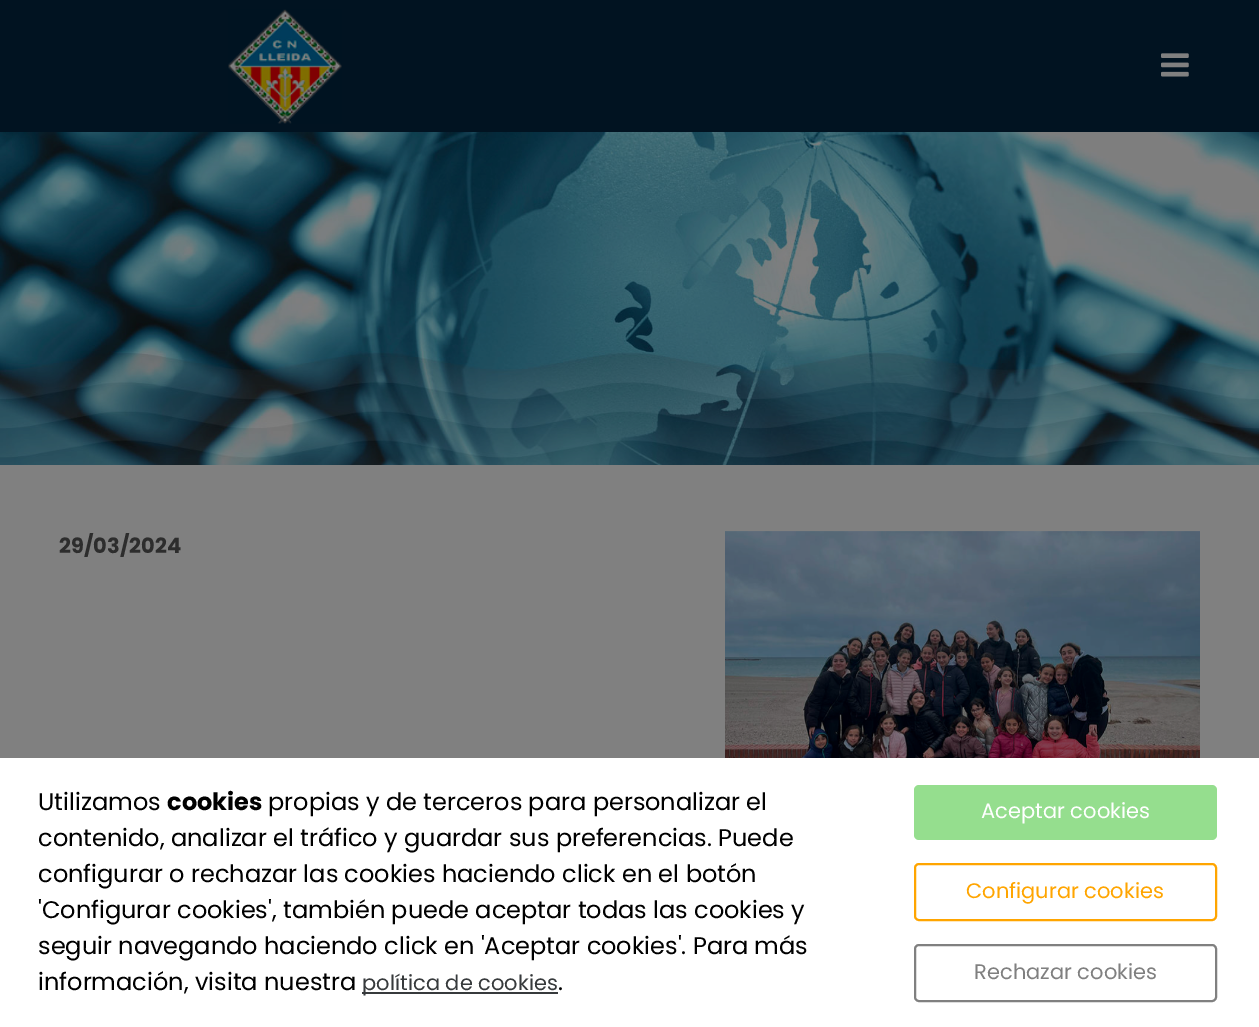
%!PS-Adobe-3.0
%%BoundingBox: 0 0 1259 1027
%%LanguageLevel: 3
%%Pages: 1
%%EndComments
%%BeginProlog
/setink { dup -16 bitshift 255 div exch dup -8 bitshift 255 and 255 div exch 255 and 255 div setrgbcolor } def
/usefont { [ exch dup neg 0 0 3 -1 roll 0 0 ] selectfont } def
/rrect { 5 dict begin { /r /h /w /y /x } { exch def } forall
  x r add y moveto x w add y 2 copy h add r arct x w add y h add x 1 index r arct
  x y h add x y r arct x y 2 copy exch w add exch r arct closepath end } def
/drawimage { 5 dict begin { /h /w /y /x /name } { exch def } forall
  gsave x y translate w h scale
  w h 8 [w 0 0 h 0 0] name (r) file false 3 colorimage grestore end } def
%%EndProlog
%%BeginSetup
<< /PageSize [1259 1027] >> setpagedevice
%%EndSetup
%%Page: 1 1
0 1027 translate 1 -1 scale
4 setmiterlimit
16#808080 setink
0 0 1259 1027 rectfill
16#011321 setink
0 0 1259 132 rectfill
(img1.raw) 228 9 114 115 drawimage
(img2.raw) 1161 53 28 24 drawimage
(img3.raw) 0 132 1259 333 drawimage
/Poppins-Bold 21 usefont
16#2D2D2D setink
59 553 moveto (29/03/2024) show
(img4.raw) 725 531 475 227 drawimage
16#FFFFFF setink
0 758 1259 269 rectfill
/Poppins-Regular 24 usefont
16#000000 setink
38 810 moveto (Utilizamos) show
/Poppins-Bold 24 usefont
167 810 moveto (cookies) show
/Poppins-Regular 24 usefont
[
    [(propias y de terceros para personalizar el) 268 810]
    [(contenido, analizar el tráfico y guardar sus preferencias. Puede) 38 846]
    [(configurar o rechazar las cookies haciendo click en el botón) 38 882]
    [('Configurar cookies', también puede aceptar todas las cookies y) 38 918]
    [(seguir navegando haciendo click en 'Aceptar cookies'. Para más) 38 954]
    [(información, visita nuestra) 38 990]
] { aload pop moveto show } forall
16#373A3C setink
362 992 196 2 rectfill
/Poppins-Regular 21 usefont
362 990 moveto (política de cookies) show
/Poppins-Regular 24 usefont
16#000000 setink
558 990 moveto (.) show
16#95DE8E setink
914 785 303 55 5 rrect fill
/Poppins-Regular 21 usefont
16#FFFFFF setink
981 818 moveto (Aceptar cookies) show
16#FFA500 setink
2 setlinewidth
915 864 301 56 4 rrect stroke
966 898 moveto (Configurar cookies) show
16#808080 setink
915 945 301 56 4 rrect stroke
974 979 moveto (Rechazar cookies) show
showpage
%%EOF
